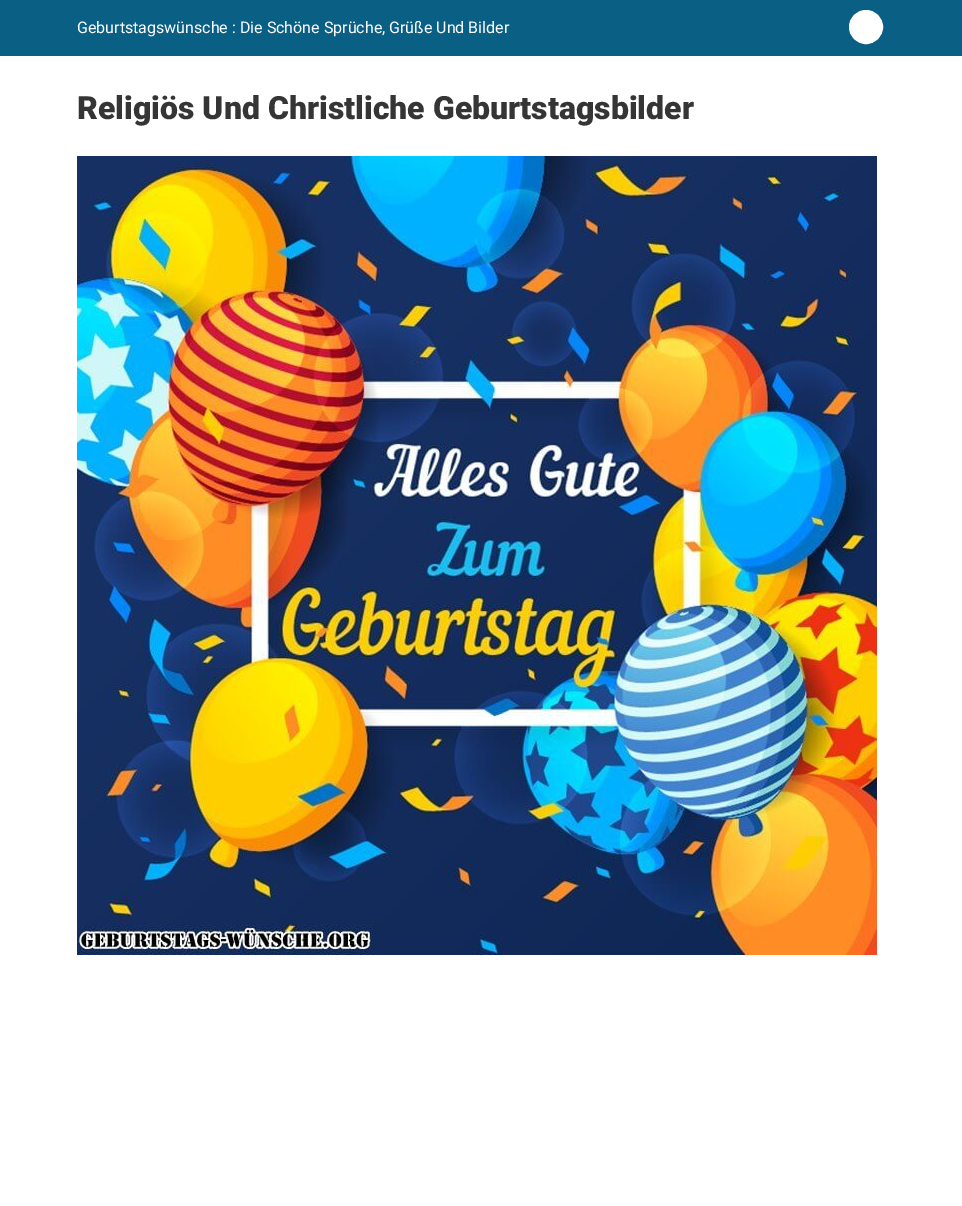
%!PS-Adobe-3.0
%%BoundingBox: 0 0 962 1206
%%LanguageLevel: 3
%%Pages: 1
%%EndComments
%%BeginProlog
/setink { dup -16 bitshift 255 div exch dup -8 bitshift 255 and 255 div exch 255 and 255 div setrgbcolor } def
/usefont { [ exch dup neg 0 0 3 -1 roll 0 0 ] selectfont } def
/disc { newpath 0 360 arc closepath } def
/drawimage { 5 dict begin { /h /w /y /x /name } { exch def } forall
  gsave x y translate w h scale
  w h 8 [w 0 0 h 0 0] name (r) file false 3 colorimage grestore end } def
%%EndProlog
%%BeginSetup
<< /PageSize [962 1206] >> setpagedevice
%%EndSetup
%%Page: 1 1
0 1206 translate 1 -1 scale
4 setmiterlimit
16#FFFFFF setink
0 0 962 1206 rectfill
16#0A5F85 setink
0 0 962 56 rectfill
/Roboto-Regular 16 usefont
16#FFFFFF setink
77 33 moveto (Geburtstagswünsche : Die Schöne Sprüche, Grüße Und Bilder) show
866 27 16.5 disc gsave fill grestore
stroke
/Roboto-Black 32 usefont
16#353535 setink
77 119 moveto (Religiös Und Christliche Geburtstagsbilder) show
(img1.raw) 77 156 800 799 drawimage
showpage
%%EOF
